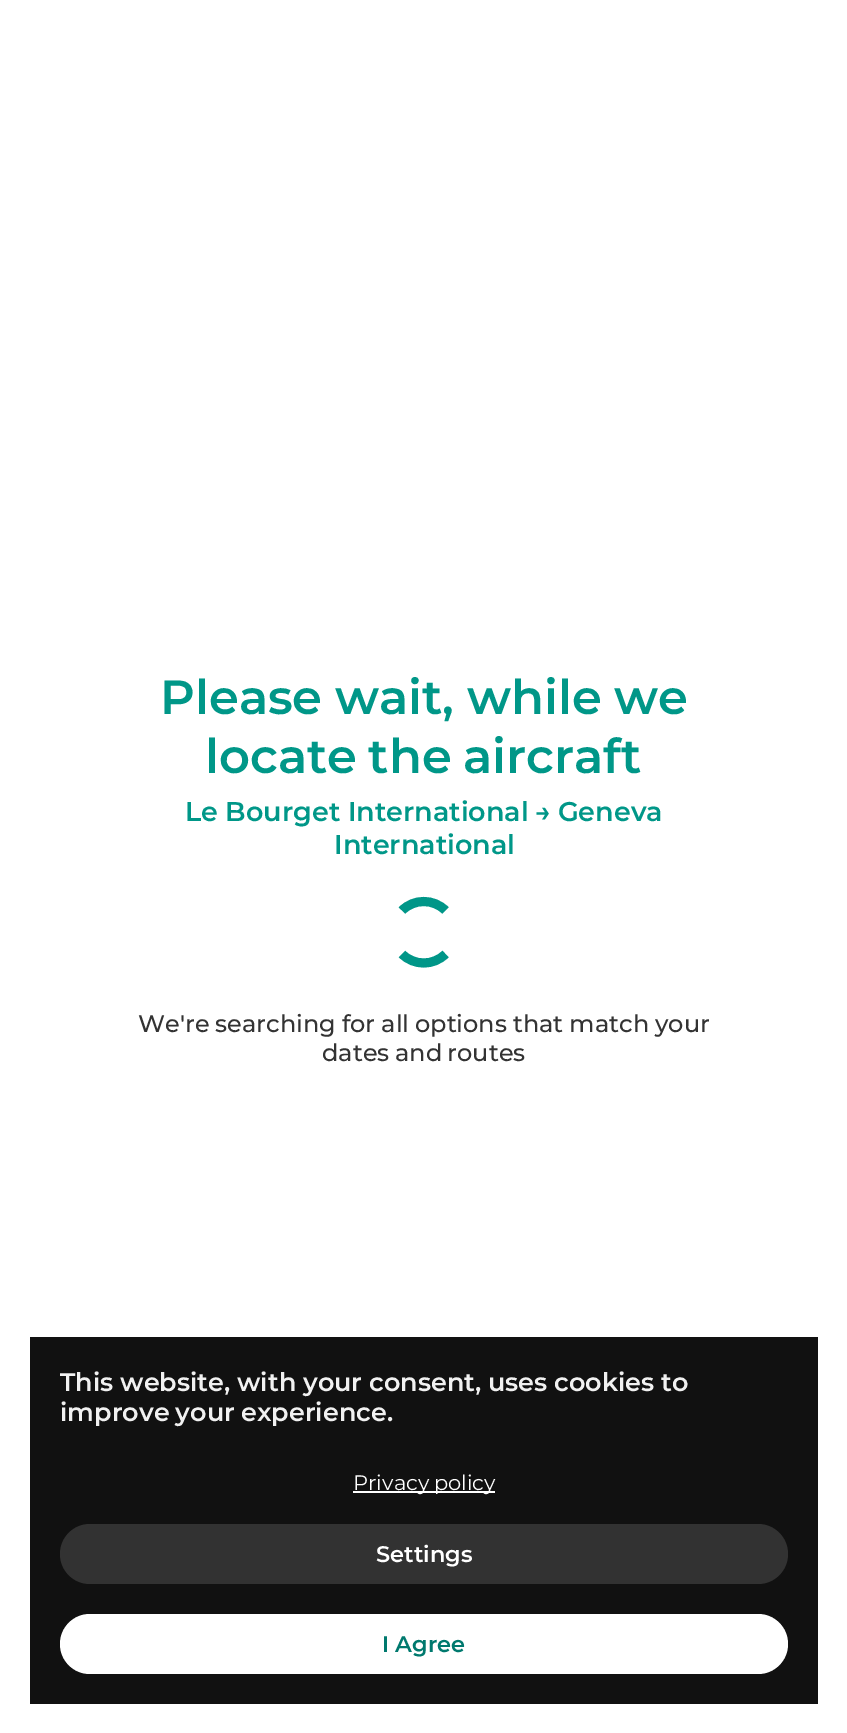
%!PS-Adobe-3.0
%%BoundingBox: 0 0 847 1733
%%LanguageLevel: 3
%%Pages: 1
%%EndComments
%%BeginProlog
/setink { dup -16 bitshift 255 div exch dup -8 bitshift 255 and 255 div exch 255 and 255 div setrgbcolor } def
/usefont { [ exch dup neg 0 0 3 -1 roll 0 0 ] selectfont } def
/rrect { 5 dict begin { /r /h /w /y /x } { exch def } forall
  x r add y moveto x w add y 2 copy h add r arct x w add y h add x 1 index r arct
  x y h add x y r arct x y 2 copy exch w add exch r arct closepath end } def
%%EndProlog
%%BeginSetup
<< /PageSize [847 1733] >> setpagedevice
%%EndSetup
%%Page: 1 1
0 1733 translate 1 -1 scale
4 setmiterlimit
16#FFFFFF setink
0 0 847 1733 rectfill
/Montserrat-SemiBold 48 usefont
16#009788 setink
160 714 moveto -0.5 0 32 (Please wait, while we) widthshow
205 773 moveto -2 0 32 (locate the aircraft) widthshow
/Montserrat-SemiBold 27 usefont
185 821 moveto (Le Bourget International) show
535 821 moveto -1 0 32 (→ Geneva) widthshow
334 854 moveto (International) show
16#009688 setink
9 setlinewidth
402 910.5 moveto 414 898.5 433.5 898.5 445.5 910.5 curveto stroke
445.5 954 moveto 433.5 966 414 966 402 954 curveto stroke
/Montserrat-Medium 24 usefont
16#333333 setink
138 1032 moveto -0.5 0 32 (We're searching for all options that match your) widthshow
322 1061 moveto -1 0 32 (dates and routes) widthshow
16#111111 setink
30 1337 788 367 rectfill
/Montserrat-SemiBold 25.5 usefont
16#F1F1F1 setink
60 1391 moveto -0.25 0 32 (This website, with your consent, uses cookies to) widthshow
60 1421 moveto -1 0 32 (improve your experience.) widthshow
16#FFFFFF setink
353 1491 142 2 rectfill
/Montserrat-Regular 21 usefont
353 1490 moveto -1 0 32 (Privacy policy) widthshow
16#323232 setink
60 1524 728 60 30 rrect fill
/Montserrat-SemiBold 22.5 usefont
16#FFFFFF setink
376 1562 moveto (Settings) show
60 1614 728 60 30 rrect fill
16#00796E setink
382 1652 moveto (I Agree) show
showpage
%%EOF
